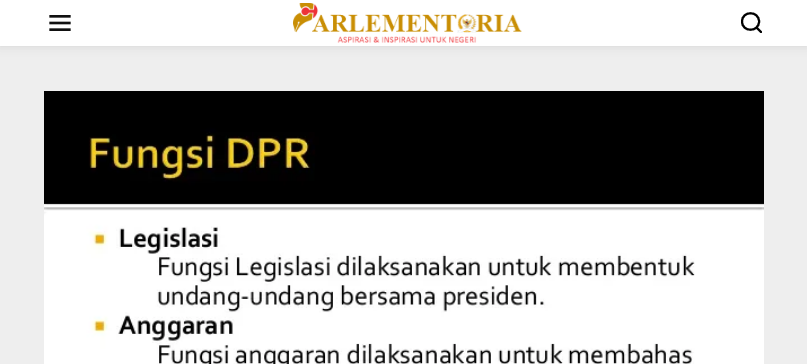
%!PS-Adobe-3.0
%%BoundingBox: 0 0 807 364
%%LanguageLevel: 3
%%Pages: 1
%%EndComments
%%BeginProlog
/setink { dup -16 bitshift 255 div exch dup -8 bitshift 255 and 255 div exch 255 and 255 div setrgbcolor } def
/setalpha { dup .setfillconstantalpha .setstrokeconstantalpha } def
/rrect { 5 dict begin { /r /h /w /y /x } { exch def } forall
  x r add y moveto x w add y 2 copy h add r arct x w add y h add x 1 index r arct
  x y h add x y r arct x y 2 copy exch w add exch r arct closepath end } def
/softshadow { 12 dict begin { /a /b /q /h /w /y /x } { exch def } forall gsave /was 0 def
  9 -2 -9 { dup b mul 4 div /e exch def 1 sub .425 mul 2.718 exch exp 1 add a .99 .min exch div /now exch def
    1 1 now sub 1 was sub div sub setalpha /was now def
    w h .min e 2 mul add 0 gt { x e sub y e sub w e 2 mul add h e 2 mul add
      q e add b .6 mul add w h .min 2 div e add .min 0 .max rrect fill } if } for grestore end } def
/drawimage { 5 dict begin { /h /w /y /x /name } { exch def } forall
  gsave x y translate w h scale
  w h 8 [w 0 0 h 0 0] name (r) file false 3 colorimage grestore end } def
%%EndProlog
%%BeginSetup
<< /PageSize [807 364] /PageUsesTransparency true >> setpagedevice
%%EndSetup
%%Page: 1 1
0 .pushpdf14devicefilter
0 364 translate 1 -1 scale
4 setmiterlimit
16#EEEEEE setink
0 0 807 364 rectfill
16#000000 setink
0 0 807 46 0 5 0.1 softshadow
16#FFFFFF setink
0 0 807 46 rectfill
(img1.raw) 49 15 22 16 drawimage
(img2.raw) 293 3 229 40 drawimage
16#000000 setink
2 setlinewidth
1 setlinecap
761 32 moveto 756.5 27.5 lineto 759 21.5 moveto 759 32.5 742 32.5 742 21.5 curveto 742 10.5 759 10.5 759 21.5 curveto closepath stroke
(img3.raw) 44 91 720 273 drawimage
.poppdf14devicefilter showpage
%%EOF
